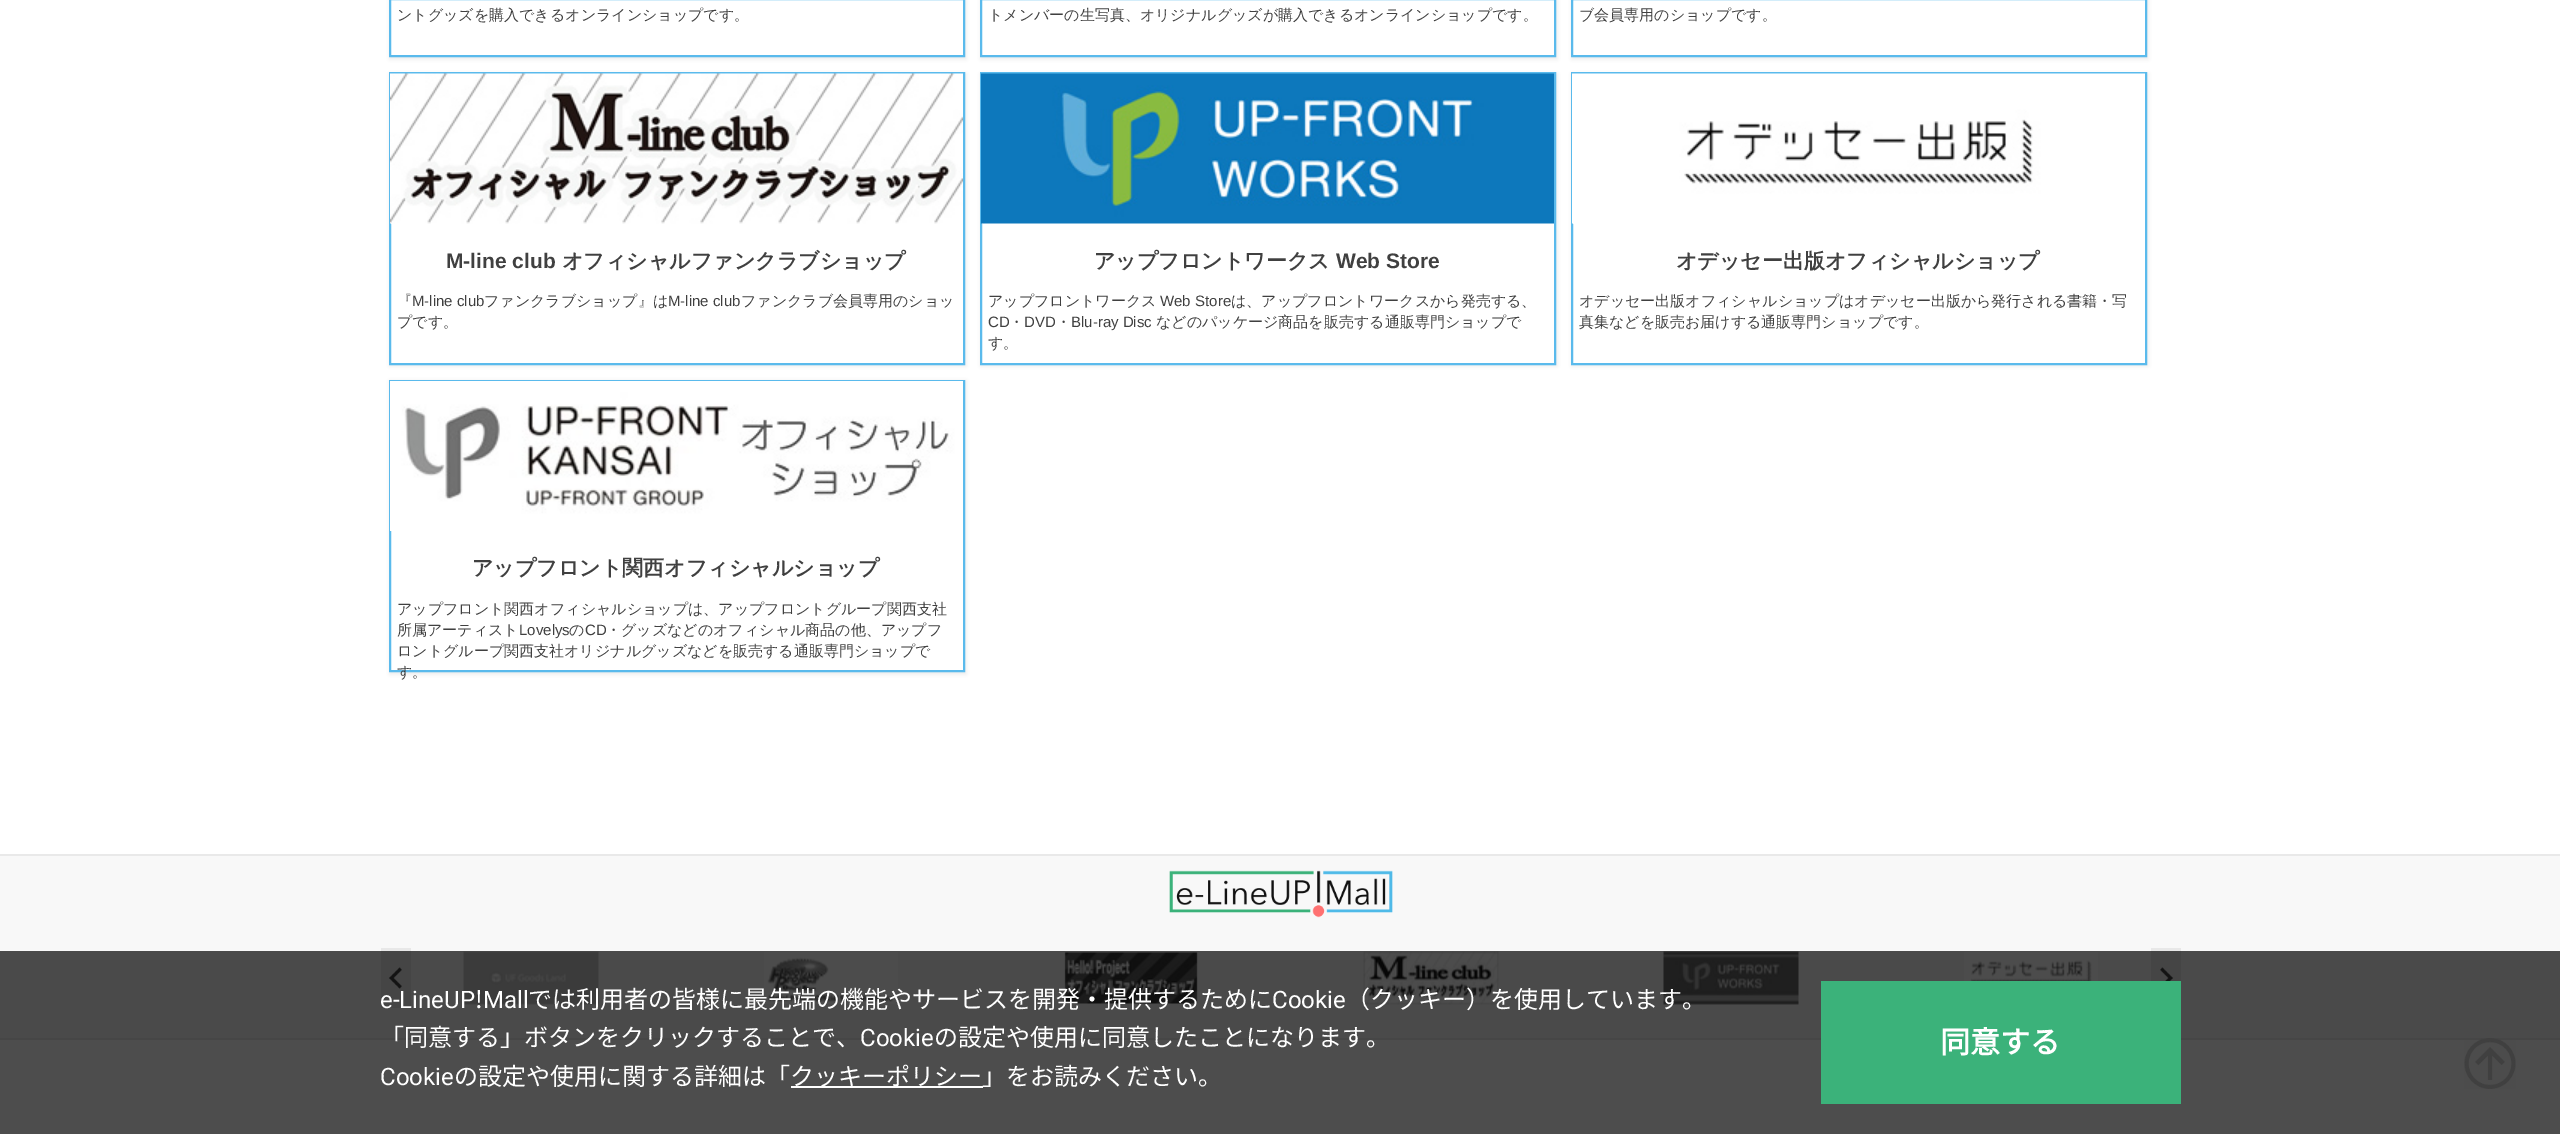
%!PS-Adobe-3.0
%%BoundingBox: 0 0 2560 1134
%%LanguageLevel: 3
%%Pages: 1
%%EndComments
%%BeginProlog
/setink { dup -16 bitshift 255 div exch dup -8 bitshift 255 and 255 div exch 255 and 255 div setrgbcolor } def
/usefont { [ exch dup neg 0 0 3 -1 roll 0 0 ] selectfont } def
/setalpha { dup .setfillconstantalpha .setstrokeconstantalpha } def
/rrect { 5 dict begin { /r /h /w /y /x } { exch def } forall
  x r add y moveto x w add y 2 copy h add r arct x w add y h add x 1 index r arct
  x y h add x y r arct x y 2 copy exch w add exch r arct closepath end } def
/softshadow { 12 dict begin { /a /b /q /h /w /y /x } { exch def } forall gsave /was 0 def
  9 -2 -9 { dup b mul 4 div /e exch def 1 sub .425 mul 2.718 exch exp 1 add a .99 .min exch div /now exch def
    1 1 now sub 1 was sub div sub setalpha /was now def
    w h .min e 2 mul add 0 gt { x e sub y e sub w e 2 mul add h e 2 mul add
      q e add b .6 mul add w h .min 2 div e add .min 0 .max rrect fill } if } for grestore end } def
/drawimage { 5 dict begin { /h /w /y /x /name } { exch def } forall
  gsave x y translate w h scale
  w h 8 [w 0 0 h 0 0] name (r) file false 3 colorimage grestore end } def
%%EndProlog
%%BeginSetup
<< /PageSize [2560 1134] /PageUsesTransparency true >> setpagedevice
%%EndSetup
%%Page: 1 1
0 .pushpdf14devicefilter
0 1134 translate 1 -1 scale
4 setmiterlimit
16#FFFFFF setink
0 0 2560 1134 rectfill
gsave
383 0 moveto 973 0 lineto 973 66 lineto 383 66 lineto closepath 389 -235 moveto 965 -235 lineto 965 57 lineto 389 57 lineto closepath eoclip newpath
16#BBBBBB setink
390 -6 576 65 0 2 0.3 softshadow
grestore
16#5ABAEC setink
2 setlinewidth
390 -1 574 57 rectstroke
/WenQuanYiZenHei-Medium 15 usefont
16#404040 setink
397 20 moveto (ントグッズを購入できるオンラインショップです。) show
gsave
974 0 moveto 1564 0 lineto 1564 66 lineto 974 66 lineto closepath 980 -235 moveto 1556 -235 lineto 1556 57 lineto 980 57 lineto closepath eoclip newpath
16#BBBBBB setink
981 -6 576 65 0 2 0.3 softshadow
grestore
16#5ABAEC setink
981 -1 574 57 rectstroke
16#404040 setink
988 20 moveto (トメンバーの生写真、オリジナルグッズが購入できるオンラインショップです。) show
gsave
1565 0 moveto 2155 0 lineto 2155 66 lineto 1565 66 lineto closepath 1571 -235 moveto 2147 -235 lineto 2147 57 lineto 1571 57 lineto closepath eoclip newpath
16#BBBBBB setink
1572 -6 576 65 0 2 0.3 softshadow
grestore
16#5ABAEC setink
1572 -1 574 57 rectstroke
16#404040 setink
1579 20 moveto (ブ会員専用のショップです。) show
gsave
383 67 moveto 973 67 lineto 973 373 lineto 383 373 lineto closepath 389 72 moveto 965 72 lineto 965 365 lineto 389 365 lineto closepath eoclip newpath
16#BBBBBB setink
390 74 576 292 0 2 0.3 softshadow
grestore
16#5ABAEC setink
390 73 574 291 rectstroke
(img1.raw) 390 73 573 151 drawimage
/LiberationSans-Bold 21 usefont
16#404040 setink
446 268 moveto (M-line club) show
/WenQuanYiZenHei-Bold 21 usefont
562 268 moveto (オフィシャルファンクラブショップ) show
/WenQuanYiZenHei-Medium 15 usefont
397 306 moveto (『) show
/LiberationSans-Regular 15 usefont
412 306 moveto (M-line club) show
/WenQuanYiZenHei-Medium 15 usefont
484 306 moveto (ファンクラブショップ』は) show
/LiberationSans-Regular 15 usefont
668 306 moveto (M-line club) show
/WenQuanYiZenHei-Medium 15 usefont
741 306 moveto (ファンクラブ会員専用のショッ) show
397 327 moveto (プです。) show
gsave
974 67 moveto 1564 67 lineto 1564 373 lineto 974 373 lineto closepath 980 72 moveto 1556 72 lineto 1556 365 lineto 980 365 lineto closepath eoclip newpath
16#BBBBBB setink
981 74 576 292 0 2 0.3 softshadow
grestore
16#5ABAEC setink
981 73 574 291 rectstroke
(img2.raw) 981 73 573 151 drawimage
/WenQuanYiZenHei-Bold 21 usefont
16#404040 setink
1094 268 moveto (アップフロントワークス) show
/LiberationSans-Bold 21 usefont
1336 268 moveto (Web Store) show
/WenQuanYiZenHei-Medium 15 usefont
988 306 moveto (アップフロントワークス) show
/LiberationSans-Regular 15 usefont
1160 306 moveto (Web Store) show
/WenQuanYiZenHei-Medium 15 usefont
1231 306 moveto (は、アップフロントワークスから発売する、) show
/LiberationSans-Regular 15 usefont
988 327 moveto (CD) show
/WenQuanYiZenHei-Medium 15 usefont
1009 327 moveto (・) show
/LiberationSans-Regular 15 usefont
1024 327 moveto (DVD) show
/WenQuanYiZenHei-Medium 15 usefont
1056 327 moveto (・) show
/LiberationSans-Regular 15 usefont
1071 327 moveto (Blu-ray Disc) show
/WenQuanYiZenHei-Medium 15 usefont
1156 327 moveto (などのパッケージ商品を販売する通販専門ショップで) show
988 348 moveto (す。) show
gsave
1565 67 moveto 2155 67 lineto 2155 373 lineto 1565 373 lineto closepath 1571 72 moveto 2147 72 lineto 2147 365 lineto 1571 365 lineto closepath eoclip newpath
16#BBBBBB setink
1572 74 576 292 0 2 0.3 softshadow
grestore
16#5ABAEC setink
1572 73 574 291 rectstroke
(img3.raw) 1572 73 573 151 drawimage
/WenQuanYiZenHei-Bold 21 usefont
16#404040 setink
1676 268 moveto (オデッセー出版オフィシャルショップ) show
/WenQuanYiZenHei-Medium 15 usefont
1579 306 moveto (オデッセー出版オフィシャルショップはオデッセー出版から発行される書籍・写) show
1579 327 moveto (真集などを販売お届けする通販専門ショップです。) show
gsave
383 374 moveto 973 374 lineto 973 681 lineto 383 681 lineto closepath 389 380 moveto 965 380 lineto 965 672 lineto 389 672 lineto closepath eoclip newpath
16#BBBBBB setink
390 381 576 293 0 2 0.3 softshadow
grestore
16#5ABAEC setink
390 381 574 290 rectstroke
(img4.raw) 390 381 573 150 drawimage
/WenQuanYiZenHei-Bold 21 usefont
16#404040 setink
472 575 moveto (アップフロント関西オフィシャルショップ) show
/WenQuanYiZenHei-Medium 15 usefont
397 614 moveto (アップフロント関西オフィシャルショップは、アップフロントグループ関西支社) show
397 635 moveto (所属アーティスト) show
/LiberationSans-Regular 15 usefont
519 635 moveto (Lovelys) show
/WenQuanYiZenHei-Medium 15 usefont
569 635 moveto (の) show
/LiberationSans-Regular 15 usefont
585 635 moveto (CD) show
/WenQuanYiZenHei-Medium 15 usefont
[
    [(・グッズなどのオフィシャル商品の他、アップフ) 606 635]
    [(ロントグループ関西支社オリジナルグッズなどを販売する通販専門ショップで) 397 656]
    [(す。) 397 677]
] { aload pop moveto show } forall
[
    [0 1040 2560 94 16#4D4D4D]
    [0 856 2560 95 16#F8F8F8]
    [0 951 2560 87 16#4A4A4A]
    [0 854 2560 2 16#E9E9E9]
    [0 1038 2560 2 16#464646]
] { aload pop setink rectfill } forall
(img5.raw) 1169 870 224 48 drawimage
(img6.raw) 381 948 30 60 drawimage
(img7.raw) 2151 948 30 33 drawimage
(img8.raw) 463 951 136 54 drawimage
(img9.raw) 764 952 134 52 drawimage
(img10.raw) 1064 952 134 52 drawimage
(img11.raw) 1363 951 136 54 drawimage
(img12.raw) 1663 951 136 54 drawimage
(img13.raw) 1964 952 134 29 drawimage
(img14.raw) 2464 1038 52 51 drawimage
/Roboto-Regular 24 usefont
16#FFFFFF setink
380 1008 moveto (e-LineUP) show
/NotoSansJP-Thin 24 usefont
475 1008 moveto (!) show
/Roboto-Regular 24 usefont
483 1008 moveto (Mall) show
/NotoSansJP-Thin 24 usefont
528 1008 moveto (では利用者の皆様に最先端の機能やサービスを開発・提供するために) show
/Roboto-Regular 24 usefont
1272 1008 moveto (Cookie) show
/NotoSansJP-Thin 24 usefont
1346 1008 moveto (（クッキー）を使用しています。) show
380 1046 moveto (「同意する」ボタンをクリックすることで、) show
/Roboto-Regular 24 usefont
860 1046 moveto (Cookie) show
/NotoSansJP-Thin 24 usefont
934 1046 moveto (の設定や使用に同意したことになります。) show
/Roboto-Regular 24 usefont
380 1085 moveto (Cookie) show
/NotoSansJP-Thin 24 usefont
454 1085 moveto (の設定や使用に関する詳細は「) show
791 1086 192 2 rectfill
790 1085 moveto (クッキーポリシー」をお読みください。) show
16#3BB27A setink
1821 981 360 123 rectfill
/NotoSansJP-Bold 30 usefont
16#FFFFFF setink
1940 1053 moveto (同意する) show
.poppdf14devicefilter showpage
%%EOF
